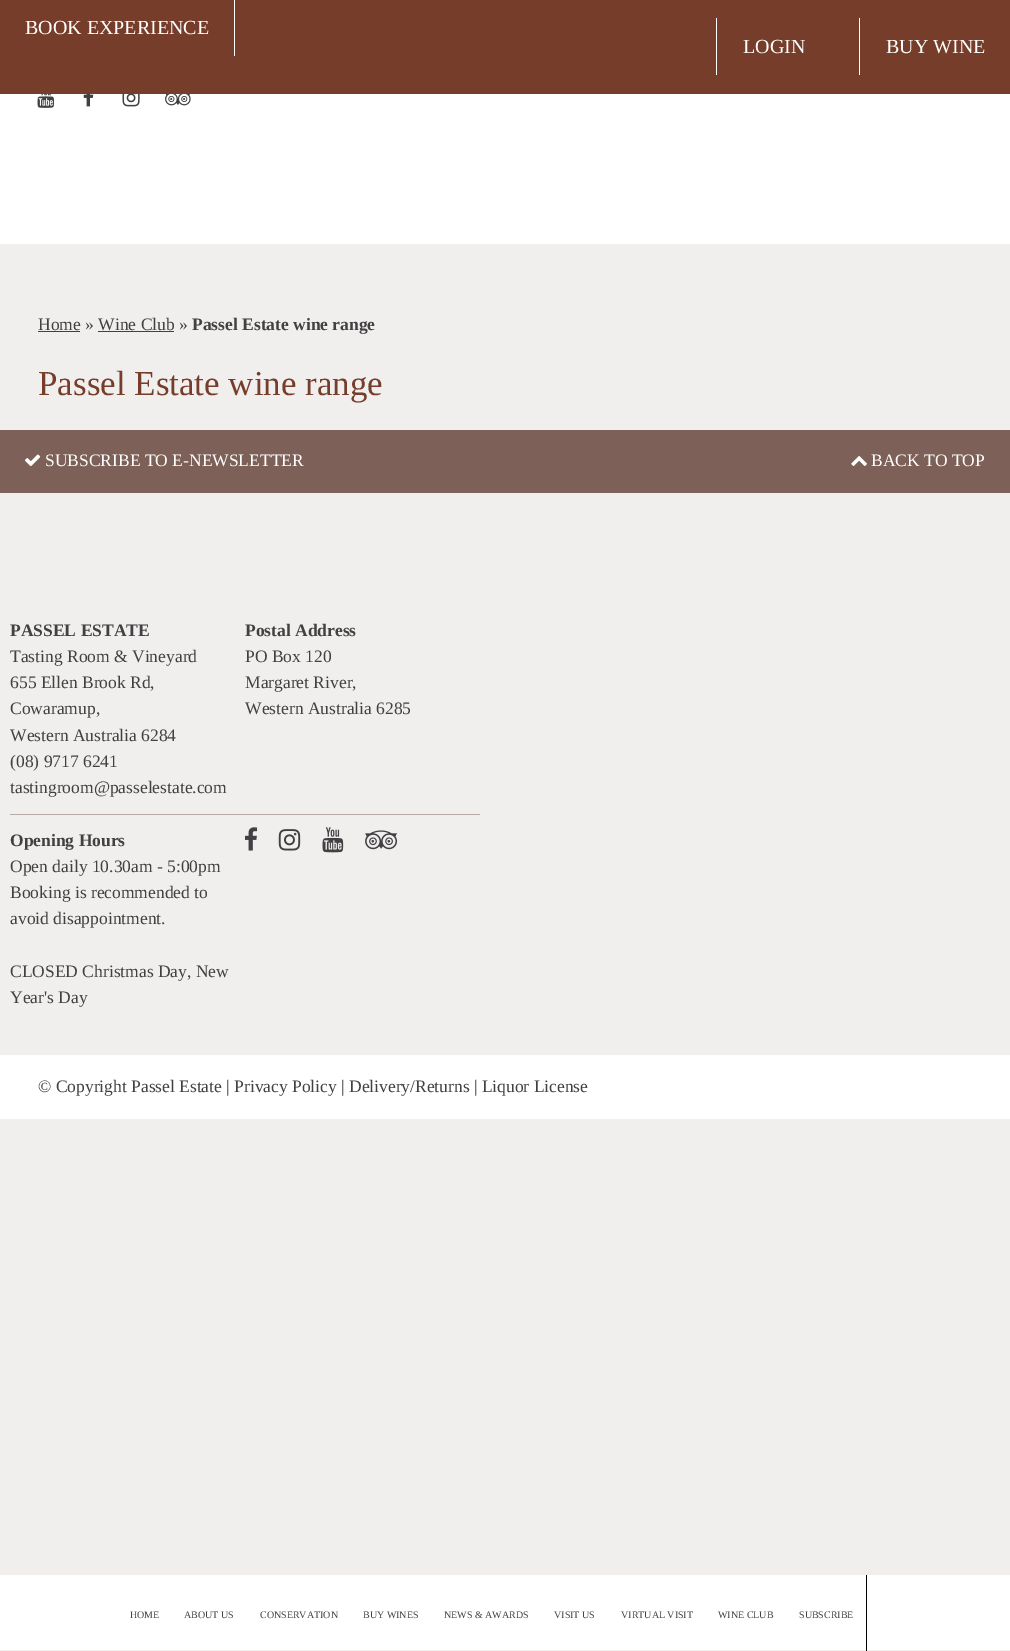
%!PS-Adobe-3.0
%%BoundingBox: 0 0 1010 1651
%%LanguageLevel: 3
%%Pages: 1
%%EndComments
%%BeginProlog
/setink { dup -16 bitshift 255 div exch dup -8 bitshift 255 and 255 div exch 255 and 255 div setrgbcolor } def
/usefont { [ exch dup neg 0 0 3 -1 roll 0 0 ] selectfont } def
/drawimage { 5 dict begin { /h /w /y /x /name } { exch def } forall
  gsave x y translate w h scale
  w h 8 [w 0 0 h 0 0] name (r) file false 3 colorimage grestore end } def
%%EndProlog
%%BeginSetup
<< /PageSize [1010 1651] >> setpagedevice
%%EndSetup
%%Page: 1 1
0 1651 translate 1 -1 scale
4 setmiterlimit
16#F1EFED setink
0 0 1010 1651 rectfill
16#763E2A setink
0 0 1010 94 rectfill
16#FFFFFF setink
234 0 1 56 rectfill
/LiberationSerif-Regular 20 usefont
25 34 moveto (BOOK EXPERIENCE) show
716 18 1 57 rectfill
743 53 moveto (LOGIN) show
859 18 1 57 rectfill
886 53 moveto (BUY WINE) show
0 94 1010 150 rectfill
(img1.raw) 37 94 18 14 drawimage
(img2.raw) 83 94 11 13 drawimage
(img3.raw) 122 94 18 13 drawimage
(img4.raw) 165 94 26 12 drawimage
/LiberationSerif-Regular 17.5 usefont
16#414042 setink
38 330 moveto (Home » Wine Club ») show
38 331 42 1 rectfill
98 331 76 1 rectfill
/LiberationSerif-Bold 17.5 usefont
192 330 moveto (Passel Estate wine range) show
/LiberationSerif-Regular 35 usefont
16#763E2A setink
38 395 moveto (Passel Estate wine range) show
16#7D6158 setink
0 430 1010 63 rectfill
(img5.raw) 25 454 16 13 drawimage
/LiberationSerif-Regular 17.5 usefont
16#FFFFFF setink
45 466 moveto (SUBSCRIBE TO E-NEWSLETTER) show
(img6.raw) 851 456 16 10 drawimage
871 466 moveto (BACK TO TOP) show
/LiberationSerif-Bold 17.5 usefont
16#414042 setink
10 636 moveto (PASSEL ESTATE) show
/LiberationSerif-Regular 17.5 usefont
[
    [(Tasting Room & Vineyard) 10 662]
    [(655 Ellen Brook Rd,) 10 688]
    [(Cowaramup,) 10 714]
    [(Western Australia 6284) 10 741]
    [(\(08\) 9717 6241) 10 767]
    [(tastingroom@passelestate.com) 10 793]
] { aload pop moveto show } forall
/LiberationSerif-Bold 17.5 usefont
245 636 moveto (Postal Address) show
/LiberationSerif-Regular 17.5 usefont
[
    [(PO Box 120) 245 662]
    [(Margaret River,) 245 688]
    [(Western Australia 6285) 245 714]
] { aload pop moveto show } forall
16#B6AAA6 setink
10 814 470 1 rectfill
/LiberationSerif-Bold 17.5 usefont
16#414042 setink
10 846 moveto (Opening Hours) show
/LiberationSerif-Regular 17.5 usefont
[
    [(Open daily 10.30am - 5:00pm) 10 872]
    [(Booking is recommended to) 10 898]
    [(avoid disappointment.) 10 924]
    [(CLOSED Christmas Day, New) 10 977]
    [(Year's Day) 10 1003]
] { aload pop moveto show } forall
(img7.raw) 245 827 13 24 drawimage
(img8.raw) 278 829 23 22 drawimage
(img9.raw) 322 827 22 26 drawimage
(img10.raw) 365 830 33 20 drawimage
16#FFFFFF setink
0 1055 1010 64 rectfill
16#414042 setink
38 1092 moveto (© Copyright Passel Estate | Privacy Policy | Delivery/Returns | Liquor License) show
16#FFFFFF setink
0 1575 1010 75 rectfill
/LiberationSerif-Regular 10 usefont
16#414042 setink
[
    [(HOME) 130 1618]
    [(ABOUT US) 184 1618]
    [(CONSERVATION) 260 1618]
    [(BUY WINES) 363 1618]
    [(NEWS & AWARDS) 444 1618]
    [(VISIT US) 554 1618]
    [(VIRTUAL VISIT) 621 1618]
    [(WINE CLUB) 718 1618]
    [(SUBSCRIBE) 799 1618]
] { aload pop moveto show } forall
16#000000 setink
866 1575 1 76 rectfill
showpage
%%EOF
